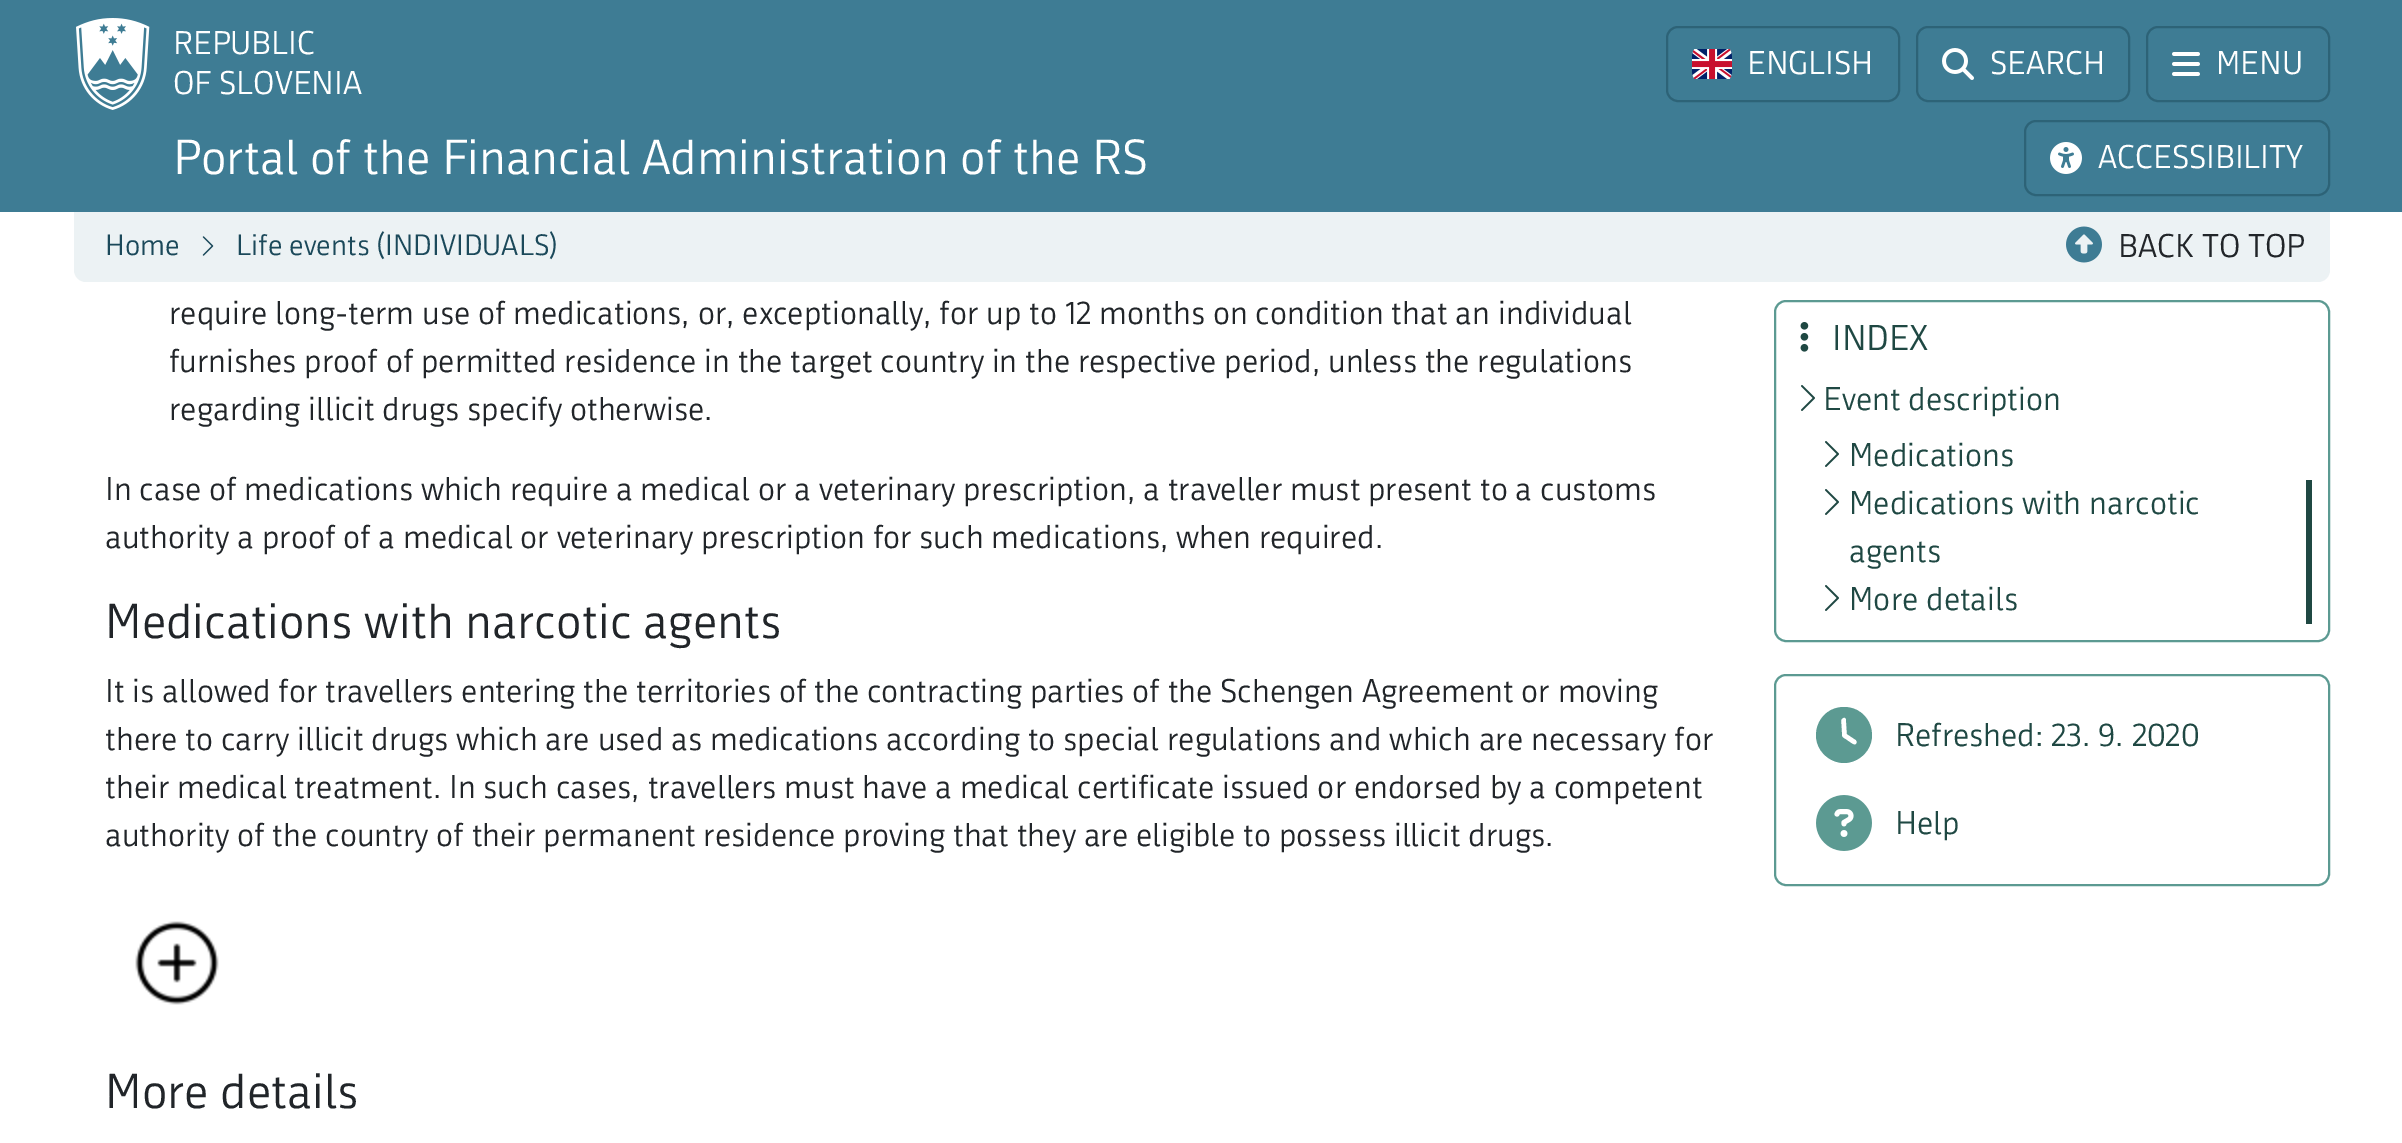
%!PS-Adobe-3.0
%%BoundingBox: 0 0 2402 1143
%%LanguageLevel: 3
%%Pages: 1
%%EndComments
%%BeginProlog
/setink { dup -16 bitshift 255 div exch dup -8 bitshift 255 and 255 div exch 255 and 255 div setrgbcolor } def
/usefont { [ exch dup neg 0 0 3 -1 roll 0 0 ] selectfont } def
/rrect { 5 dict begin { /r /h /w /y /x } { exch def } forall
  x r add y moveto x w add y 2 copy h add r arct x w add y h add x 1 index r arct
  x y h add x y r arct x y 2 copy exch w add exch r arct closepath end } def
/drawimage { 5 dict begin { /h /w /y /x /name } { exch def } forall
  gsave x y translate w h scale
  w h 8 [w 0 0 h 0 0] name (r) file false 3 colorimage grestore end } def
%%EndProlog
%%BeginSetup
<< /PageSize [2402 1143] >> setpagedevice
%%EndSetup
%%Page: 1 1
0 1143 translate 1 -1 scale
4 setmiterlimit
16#FFFFFF setink
0 0 2402 1143 rectfill
16#3E7C94 setink
0 0 2402 212 rectfill
(img1.raw) 76 18 74 92 drawimage
/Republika-Regular 32 usefont
16#FFFFFF setink
173 54 moveto (REPUBLIC) show
173 94 moveto (OF SLOVENIA) show
16#2D6377 setink
2 setlinewidth
1667 27 232 74 11 rrect stroke
(img2.raw) 1692 49 40 30 drawimage
16#FFFFFF setink
1747 74 moveto (ENGLISH) show
16#2D6377 setink
1917 27 212 74 11 rrect stroke
(img3.raw) 1942 48 32 32 drawimage
16#FFFFFF setink
1990 74 moveto (SEARCH) show
16#2D6377 setink
2147 27 182 74 11 rrect stroke
(img4.raw) 2172 52 28 24 drawimage
16#FFFFFF setink
2216 74 moveto (MENU) show
/Republika-Regular 48 usefont
173 174 moveto (Portal of the Financial Administration of the RS) show
16#2D6377 setink
2025 121 304 74 11 rrect stroke
(img5.raw) 2050 142 32 32 drawimage
/Republika-Regular 32 usefont
16#FFFFFF setink
2098 168 moveto (ACCESSIBILITY) show
16#ECF2F4 setink
74 212 moveto 2330 212 lineto 2330 270 lineto 2330 276.5 2324.5 282 2318 282 curveto 86 282 lineto 79.5 282 74 276.5 74 270 curveto closepath fill
/Republika-Regular 28.75 usefont
16#1B495A setink
105 255 moveto (Home) show
(img6.raw) 202 236 12 20 drawimage
236 255 moveto (Life events \(INDIVIDUALS\)) show
(img7.raw) 2066 226 36 37 drawimage
/Republika-Regular 32 usefont
16#212529 setink
[
    [(BACK TO TOP) 2118 257]
    [(require long-term use of medications, or, exceptionally, for up to 12 months on condition that an individual) 169 324]
    [(furnishes proof of permitted residence in the target country in the respective period, unless the regulations) 169 372]
    [(regarding illicit drugs specify otherwise.) 169 420]
    [(In case of medications which require a medical or a veterinary prescription, a traveller must present to a customs) 105 500]
    [(authority a proof of a medical or veterinary prescription for such medications, when required.) 105 548]
] { aload pop moveto show } forall
/Republika-Regular 48 usefont
105 638 moveto (Medications with narcotic agents) show
/Republika-Regular 32 usefont
[
    [(It is allowed for travellers entering the territories of the contracting parties of the Schengen Agreement or moving) 105 702]
    [(there to carry illicit drugs which are used as medications according to special regulations and which are necessary for) 105 750]
    [(their medical treatment. In such cases, travellers must have a medical certificate issued or endorsed by a competent) 105 798]
    [(authority of the country of their permanent residence proving that they are eligible to possess illicit drugs.) 105 846]
] { aload pop moveto show } forall
(img8.raw) 135 921 84 84 drawimage
/Republika-Regular 48 usefont
105 1108 moveto (More details) show
16#5C9A92 setink
1775 301 554 340 11 rrect stroke
(img9.raw) 1800 322 9 30 drawimage
/Republika-Regular 35 usefont
16#1F4843 setink
1832 350 moveto (INDEX) show
(img10.raw) 1801 385 14 26 drawimage
/Republika-Regular 32 usefont
1823 410 moveto (Event description) show
(img10.raw) 1825 441 14 26 drawimage
1849 466 moveto (Medications) show
2306 480 6 144 rectfill
(img10.raw) 1825 489 14 26 drawimage
1849 514 moveto (Medications with narcotic) show
1849 562 moveto (agents) show
(img10.raw) 1825 585 14 26 drawimage
1849 610 moveto (More details) show
16#5C9A92 setink
1775 675 554 210 11 rrect stroke
1844 707 moveto 1871 707 1882 741 1861 757 curveto 1856 761 1850 763 1844 763 curveto 1838 763 1832 761 1827 757 curveto 1806 741 1817 707 1844 707 curveto closepath 1841 720 moveto 1842 736 lineto 1842 738 1846 739 1848 741 curveto 1850 742 1856 748 1857 742 curveto 1856 740 lineto 1847 734 lineto 1846 719 lineto 1845 716 1842 718 1841 720 curveto closepath fill
16#1F4843 setink
1895 746 moveto (Refreshed: 23. 9. 2020) show
(img11.raw) 1816 795 56 56 drawimage
1895 834 moveto (Help) show
showpage
%%EOF
